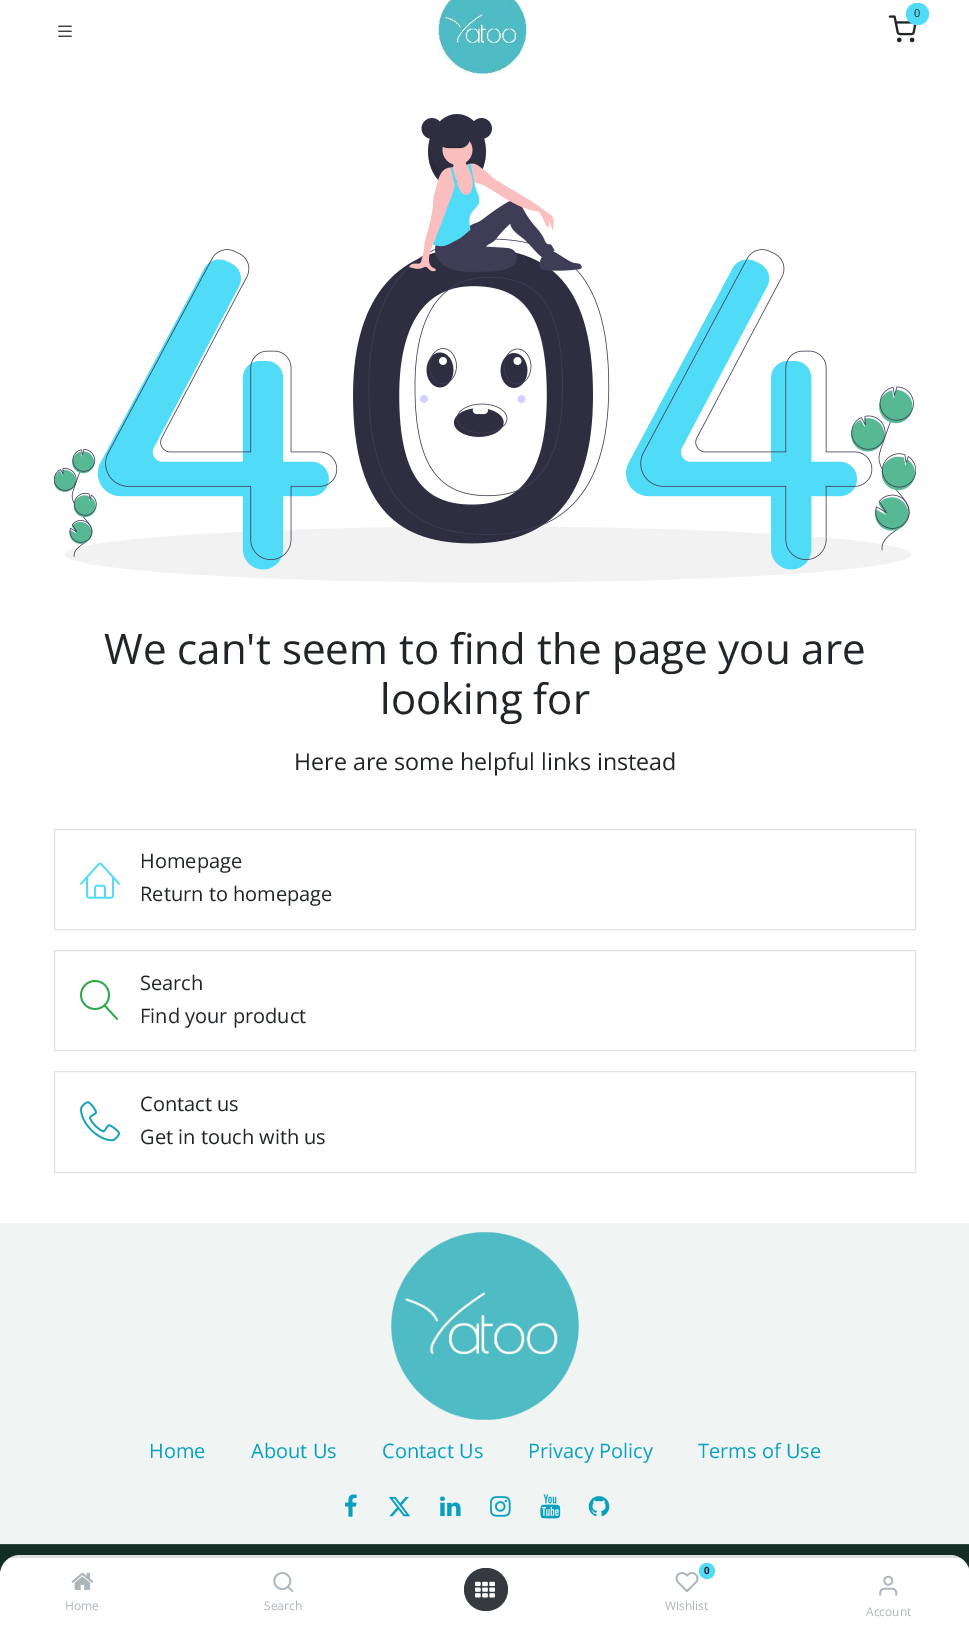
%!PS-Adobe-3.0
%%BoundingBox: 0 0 969 1626
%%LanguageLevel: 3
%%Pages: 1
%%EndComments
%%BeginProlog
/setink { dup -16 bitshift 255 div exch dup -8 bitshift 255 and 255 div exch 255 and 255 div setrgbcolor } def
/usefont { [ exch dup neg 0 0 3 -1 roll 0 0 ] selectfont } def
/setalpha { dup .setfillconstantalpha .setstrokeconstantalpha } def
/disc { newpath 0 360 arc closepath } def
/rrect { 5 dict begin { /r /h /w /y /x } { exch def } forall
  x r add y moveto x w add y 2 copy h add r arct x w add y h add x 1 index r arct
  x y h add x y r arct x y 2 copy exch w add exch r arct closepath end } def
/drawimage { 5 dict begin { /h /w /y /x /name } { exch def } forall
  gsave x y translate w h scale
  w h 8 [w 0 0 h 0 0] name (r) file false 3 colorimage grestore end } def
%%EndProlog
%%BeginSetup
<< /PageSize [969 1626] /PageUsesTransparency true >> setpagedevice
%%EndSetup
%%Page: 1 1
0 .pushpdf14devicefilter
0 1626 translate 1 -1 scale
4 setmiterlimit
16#FFFFFF setink
0 0 969 1626 rectfill
(img1.raw) 438 0 89 74 drawimage
(img2.raw) 888 15 29 28 drawimage
16#50DBF7 setink
906 3 23 22 11 rrect fill
/OpenSans-Regular 11 usefont
16#212529 setink
914 17 moveto (0) show
(img3.raw) 58 25 14 12 drawimage
(img4.raw) 54 114 862 469 drawimage
/OpenSans-Regular 42 usefont
104 664 moveto (We can't seem to find the page you are) show
380 714 moveto (looking for) show
/OpenSans-Regular 23.25 usefont
294 770 moveto (Here are some helpful links instead) show
16#DEE2E6 setink
54.5 829.5 861 100 rectstroke
(img5.raw) 80 862 40 37 drawimage
/OpenSans-Regular 20 usefont
16#212529 setink
140 868 moveto (Homepage) show
140 901 moveto (Return to homepage) show
16#DEE2E6 setink
54.5 950.5 861 100 rectstroke
(img6.raw) 80 980 38 40 drawimage
16#212529 setink
140 990 moveto (Search) show
140 1023 moveto (Find your product) show
16#DEE2E6 setink
54.5 1071.5 861 101 rectstroke
(img7.raw) 80 1101 40 41 drawimage
16#212529 setink
140 1111 moveto (Contact us) show
140 1144 moveto (Get in touch with us) show
16#F0F5F4 setink
0 1223 969 321 rectfill
(img8.raw) 391 1232 188 188 drawimage
16#09A0BF setink
[
    [(Home) 149 1458]
    [(About Us) 251 1458]
    [(Contact Us) 382 1458]
    [(Privacy Policy) 528 1458]
    [(Terms of Use) 698 1458]
] { aload pop moveto show } forall
(img9.raw) 345 1494 12 23 drawimage
(img10.raw) 389 1496 21 21 drawimage
(img11.raw) 440 1496 21 21 drawimage
(img12.raw) 490 1496 21 21 drawimage
(img13.raw) 540 1494 21 25 drawimage
(img14.raw) 588 1496 22 21 drawimage
16#142E26 setink
0 1545 969 30 rectfill
16#304740 setink
0 1544 969 1 rectfill
16#FFFFFF setink
20 1555 moveto 950 1555 lineto 961 1555 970 1564 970 1575 curveto 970 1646 lineto 0 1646 lineto 0 1575 lineto 0 1564 9 1555 20 1555 curveto closepath fill
0.15 setalpha
16#212529 setink
10 1555 950 3 rectfill
1 setalpha
(img15.raw) 71 1572 23 18 drawimage
/OpenSans-Regular 12 usefont
16#ADB5BD setink
65 1610 moveto (Home) show
(img16.raw) 273 1572 21 20 drawimage
264 1610 moveto (Search) show
16#343A40 setink
464 1568 44 43 21.5 rrect fill
(img17.raw) 475 1581 20 17 drawimage
16#50DBF7 setink
707 1571 7.5 disc gsave fill grestore
stroke
/OpenSans-Bold 10 usefont
16#212529 setink
704 1574 moveto (0) show
(img18.raw) 675 1572 24 21 drawimage
/OpenSans-Regular 12 usefont
16#ADB5BD setink
665 1610 moveto (Wishlist) show
(img19.raw) 879 1575 19 21 drawimage
866 1616 moveto (Account) show
.poppdf14devicefilter showpage
%%EOF
